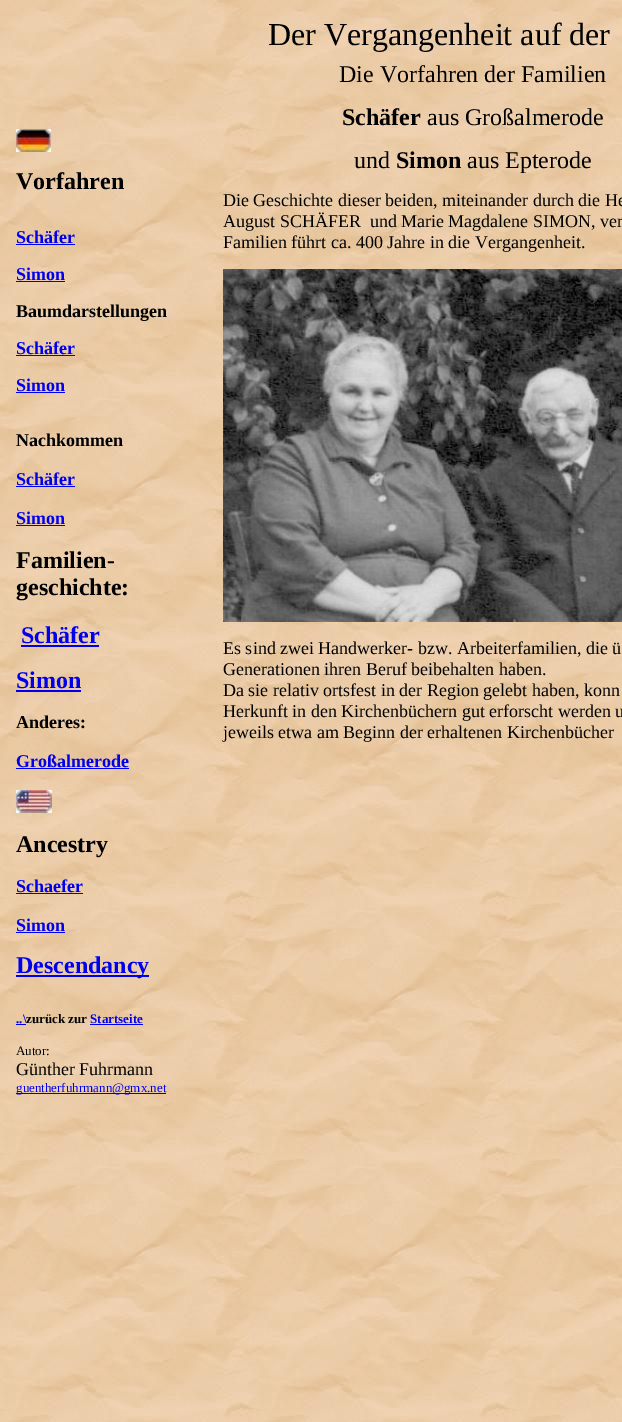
%!PS-Adobe-3.0
%%BoundingBox: 0 0 622 1422
%%LanguageLevel: 3
%%Pages: 1
%%EndComments
%%BeginProlog
/setink { dup -16 bitshift 255 div exch dup -8 bitshift 255 and 255 div exch 255 and 255 div setrgbcolor } def
/usefont { [ exch dup neg 0 0 3 -1 roll 0 0 ] selectfont } def
/drawimage { 5 dict begin { /h /w /y /x /name } { exch def } forall
  gsave x y translate w h scale
  w h 8 [w 0 0 h 0 0] name (r) file false 3 colorimage grestore end } def
%%EndProlog
%%BeginSetup
<< /PageSize [622 1422] >> setpagedevice
%%EndSetup
%%Page: 1 1
0 1422 translate 1 -1 scale
4 setmiterlimit
16#FFFFFF setink
0 0 622 1422 rectfill
(img1.raw) 0 0 622 1422 drawimage
/LiberationSerif-Regular 32 usefont
16#000000 setink
268 45 moveto (Der Vergangenheit auf der) show
(img2.raw) 16 129 35 23 drawimage
/LiberationSerif-Bold 24 usefont
16 189 moveto (Vorfahren) show
/LiberationSerif-Bold 18 usefont
16#0000EE setink
16 243 moveto (Schäfer) show
16 244 59 1 rectfill
16 280 moveto (Simon) show
16 281 49 1 rectfill
16#000000 setink
16 317 moveto (Baumdarstellungen) show
16#0000EE setink
16 354 moveto (Schäfer) show
16 355 59 1 rectfill
16 391 moveto (Simon) show
16 392 49 1 rectfill
16#000000 setink
16 446 moveto (Nachkommen) show
16#0000EE setink
16 485 moveto (Schäfer) show
16 486 59 1 rectfill
16 524 moveto (Simon) show
16 525 49 1 rectfill
/LiberationSerif-Bold 24 usefont
16#000000 setink
16 568 moveto (Familien-) show
16 595 moveto (geschichte:) show
16#0000EE setink
21 643 moveto (Schäfer) show
21 645 78 2 rectfill
16 688 moveto (Simon) show
16 690 65 2 rectfill
/LiberationSerif-Bold 18 usefont
16#000000 setink
16 728 moveto (Anderes:) show
16#0000EE setink
16 767 moveto (Großalmerode) show
16 768 113 1 rectfill
(img3.raw) 16 790 36 23 drawimage
/LiberationSerif-Bold 24 usefont
16#000000 setink
16 852 moveto (Ancestry) show
/LiberationSerif-Bold 18 usefont
16#0000EE setink
16 892 moveto (Schaefer) show
16 893 67 1 rectfill
16 931 moveto (Simon) show
16 932 49 1 rectfill
16 975 133 2 rectfill
/LiberationSerif-Bold 24 usefont
16 973 moveto (Descendancy) show
/LiberationSerif-Bold 13 usefont
16 1023 moveto (..\\) show
16 1024 10 1 rectfill
16#000000 setink
26 1023 moveto (zurück zur) show
16#0000EE setink
90 1023 moveto (Startseite) show
90 1024 53 1 rectfill
/LiberationSerif-Regular 13 usefont
16#000000 setink
16 1055 moveto (Autor:) show
/LiberationSerif-Regular 18 usefont
16 1075 moveto (Günther Fuhrmann) show
16#0000EE setink
16 1093 150 1 rectfill
/LiberationSerif-Regular 13 usefont
16 1092 moveto (guentherfuhrmann@gmx.net) show
/LiberationSerif-Regular 24 usefont
16#000000 setink
339 82 moveto (Die Vorfahren der Familien) show
/LiberationSerif-Bold 24 usefont
342 125 moveto (Schäfer) show
/LiberationSerif-Regular 24 usefont
427 125 moveto (aus Großalmerode) show
354 168 moveto (und) show
/LiberationSerif-Bold 24 usefont
396 168 moveto (Simon) show
/LiberationSerif-Regular 24 usefont
467 168 moveto (aus Epterode) show
/LiberationSerif-Regular 18 usefont
[
    [(Die Geschichte dieser beiden, miteinander durch die He) 223 206]
    [(August SCHÄFER  und Marie Magdalene SIMON, ver) 223 227]
    [(Familien führt ca. 400 Jahre in die Vergangenheit.) 223 248]
] { aload pop moveto show } forall
(img4.raw) 223 269 399 353 drawimage
[
    [(Es sind zwei Handwerker- bzw. Arbeiterfamilien, die ü) 223 654]
    [(Generationen ihren Beruf beibehalten haben.) 223 675]
    [(Da sie relativ ortsfest in der Region gelebt haben, konn) 223 696]
    [(Herkunft in den Kirchenbüchern gut erforscht werden u) 223 717]
    [(jeweils etwa am Beginn der erhaltenen Kirchenbücher) 223 738]
] { aload pop moveto show } forall
showpage
%%EOF
